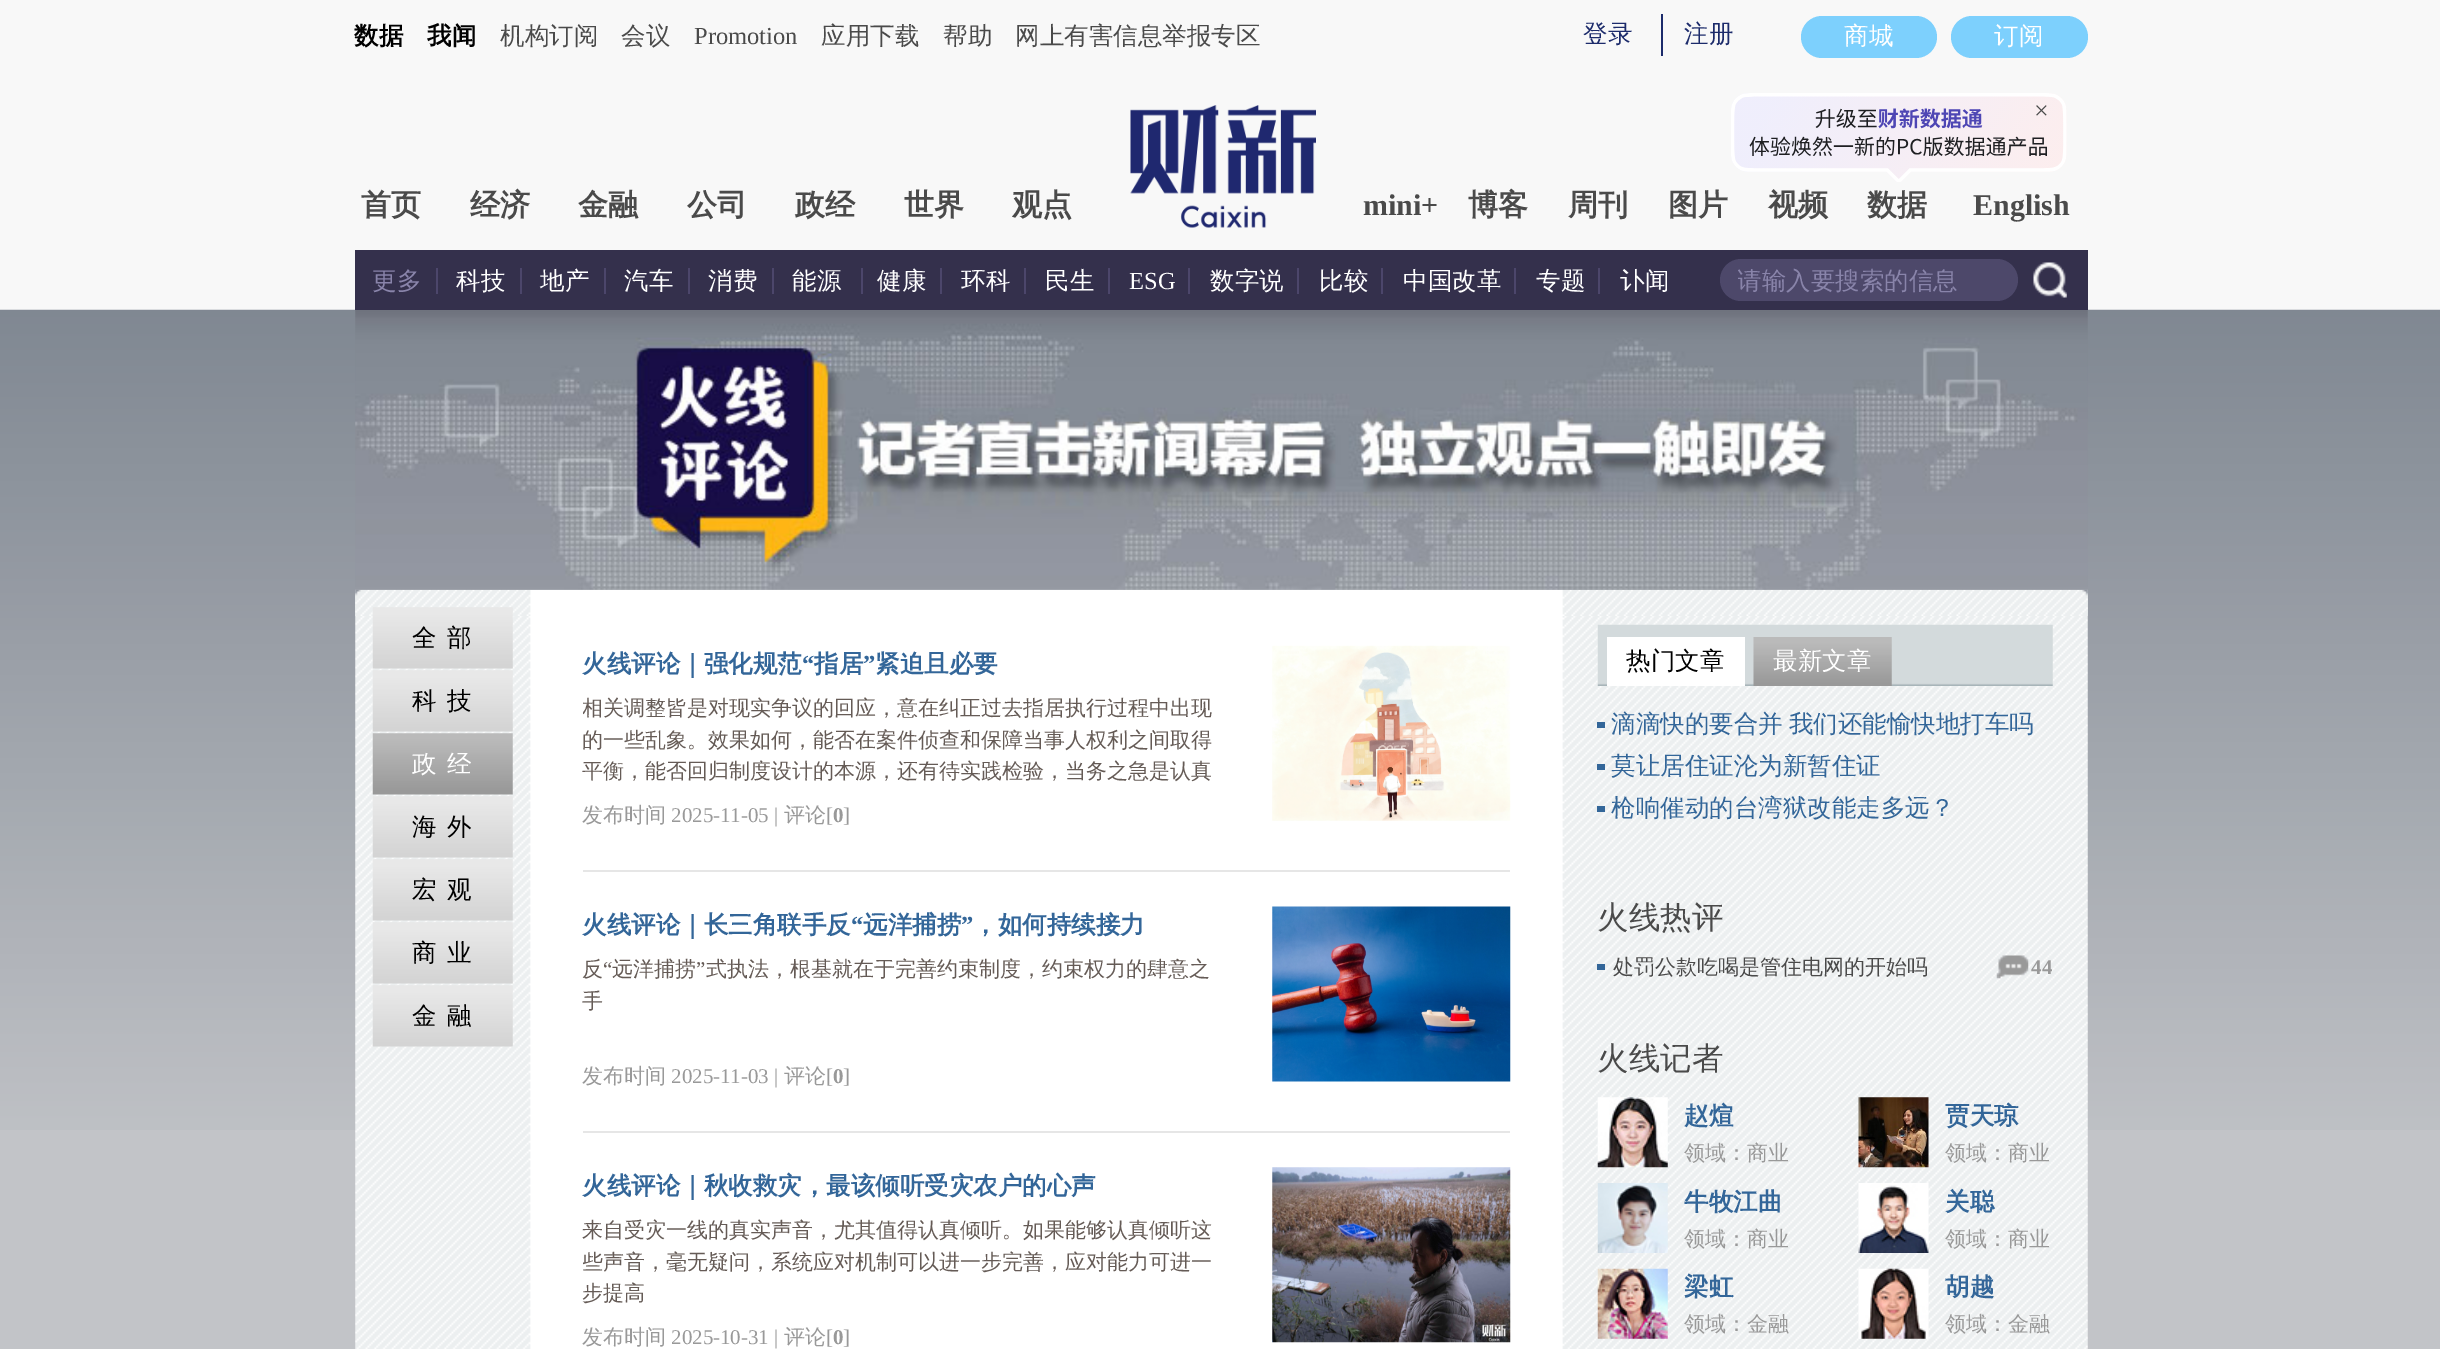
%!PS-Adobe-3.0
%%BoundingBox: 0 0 2440 1349
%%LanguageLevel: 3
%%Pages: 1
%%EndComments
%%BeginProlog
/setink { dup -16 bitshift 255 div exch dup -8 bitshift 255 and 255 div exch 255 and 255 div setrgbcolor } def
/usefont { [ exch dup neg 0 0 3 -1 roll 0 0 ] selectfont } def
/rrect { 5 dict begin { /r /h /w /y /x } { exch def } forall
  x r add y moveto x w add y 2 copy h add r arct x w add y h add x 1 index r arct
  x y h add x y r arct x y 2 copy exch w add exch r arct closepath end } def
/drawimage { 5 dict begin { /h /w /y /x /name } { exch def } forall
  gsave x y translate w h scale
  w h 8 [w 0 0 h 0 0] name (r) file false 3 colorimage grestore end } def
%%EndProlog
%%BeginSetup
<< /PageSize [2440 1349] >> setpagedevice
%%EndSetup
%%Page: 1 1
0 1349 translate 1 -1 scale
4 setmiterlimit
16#F8F8F8 setink
0 0 2440 1349 rectfill
/WenQuanYiZenHei-Bold 24.5 usefont
16#000000 setink
354 44 moveto (数据) show
427 44 moveto (我闻) show
/WenQuanYiZenHei-Medium 24.5 usefont
16#4A4A4A setink
500 44 moveto (机构订阅) show
621 44 moveto (会议) show
/LiberationSerif-Regular 24.5 usefont
694 44 moveto (Promotion) show
/WenQuanYiZenHei-Medium 24.5 usefont
[
    [(应用下载) 821 44]
    [(帮助) 943 44]
    [(网上有害信息举报专区) 1015 44]
] { aload pop moveto show } forall
16#1C2B6B setink
1583 42 moveto (登录) show
1661 14 2 42 rectfill
1684 42 moveto (注册) show
16#7DD0FD setink
1801 16 136 42 21 rrect fill
16#FFFFFF setink
1844 44 moveto (商城) show
16#7DD0FD setink
1951 16 137 42 21 rrect fill
16#FFFFFF setink
1994 44 moveto (订阅) show
/WenQuanYiZenHei-Bold 30 usefont
16#4A4A4A setink
[
    [(首页) 361 215]
    [(经济) 470 215]
    [(金融) 578 215]
    [(公司) 687 215]
    [(政经) 795 215]
    [(世界) 904 215]
    [(观点) 1012 215]
] { aload pop moveto show } forall
(img1.raw) 1130 105 186 123 drawimage
/LiberationSerif-Bold 30 usefont
1363 215 moveto (mini+) show
/WenQuanYiZenHei-Bold 30 usefont
[
    [(博客) 1468 215]
    [(周刊) 1568 215]
    [(图片) 1668 215]
    [(视频) 1768 215]
    [(数据) 1867 215]
] { aload pop moveto show } forall
/LiberationSerif-Bold 30 usefont
1973 215 moveto (English) show
(img4.raw) 0 309 2440 821 drawimage
16#34304C setink
355 250 1733 60 rectfill
/WenQuanYiZenHei-Medium 24.5 usefont
16#8984AA setink
372 289 moveto (更多) show
16#4C466B setink
436 268 2 26 rectfill
16#FFFFFF setink
456 289 moveto (科技) show
16#4C466B setink
520 268 2 26 rectfill
16#FFFFFF setink
540 289 moveto (地产) show
16#4C466B setink
604 268 2 26 rectfill
16#FFFFFF setink
624 289 moveto (汽车) show
16#4C466B setink
688 268 2 26 rectfill
16#FFFFFF setink
708 289 moveto (消费) show
16#4C466B setink
772 268 2 26 rectfill
16#FFFFFF setink
792 289 moveto (能源) show
16#4C466B setink
861 268 2 26 rectfill
16#FFFFFF setink
877 289 moveto (健康) show
16#4C466B setink
940 268 2 26 rectfill
16#FFFFFF setink
961 289 moveto (环科) show
16#4C466B setink
1024 268 2 26 rectfill
16#FFFFFF setink
1045 289 moveto (民生) show
16#4C466B setink
1108 268 2 26 rectfill
/LiberationSerif-Regular 24.5 usefont
16#FFFFFF setink
1129 289 moveto (ESG) show
16#4C466B setink
1188 268 2 26 rectfill
/WenQuanYiZenHei-Medium 24.5 usefont
16#FFFFFF setink
1210 289 moveto (数字说) show
16#4C466B setink
1297 268 2 26 rectfill
16#FFFFFF setink
1319 289 moveto (比较) show
16#4C466B setink
1381 268 2 26 rectfill
16#FFFFFF setink
1403 289 moveto (中国改革) show
16#4C466B setink
1514 268 2 26 rectfill
16#FFFFFF setink
1536 289 moveto (专题) show
16#4C466B setink
1598 268 2 26 rectfill
16#FFFFFF setink
1620 289 moveto (讣闻) show
16#4D486A setink
1720 259 298 42 21 rrect fill
gsave
1738 259 262 42 rectclip
16#8984AA setink
1737 289 moveto (请输入要搜索的信息) show
grestore
(img2.raw) 2033 262 34 36 drawimage
(img3.raw) 1731 93 336 89 drawimage
/LiberationSerif-Regular 26 usefont
16#4A4A4A setink
2034 119 moveto (×) show
16#C2C4C8 setink
0 1130 2440 219 rectfill
(img6.raw) 355 589 1733 760 drawimage
(img7.raw) 355 589 1733 27 drawimage
(img5.raw) 355 310 1733 280 drawimage
(img8.raw) 372 607 141 62 drawimage
/WenQuanYiZenHei-Medium 24.5 usefont
16#000000 setink
412 646 moveto -1 0 32 2 0 (全 部) awidthshow
(img9.raw) 372 670 141 62 drawimage
412 709 moveto -1 0 32 2 0 (科 技) awidthshow
(img10.raw) 372 733 141 62 drawimage
16#FFFFFF setink
412 772 moveto -1 0 32 2 0 (政 经) awidthshow
(img11.raw) 372 796 141 62 drawimage
16#000000 setink
412 835 moveto -1 0 32 2 0 (海 外) awidthshow
(img12.raw) 372 859 141 62 drawimage
412 898 moveto -1 0 32 2 0 (宏 观) awidthshow
(img13.raw) 372 922 141 62 drawimage
412 961 moveto -1 0 32 2 0 (商 业) awidthshow
(img9.raw) 372 985 141 62 drawimage
412 1024 moveto -1 0 32 2 0 (金 融) awidthshow
16#E6E6E6 setink
583 870 927 2 rectfill
/WenQuanYiZenHei-Bold 24.5 usefont
16#336699 setink
582 672 moveto (火线评论｜强化规范) show
/LiberationSerif-Bold 24.5 usefont
802 672 moveto (“) show
/WenQuanYiZenHei-Bold 24.5 usefont
814 672 moveto (指居) show
/LiberationSerif-Bold 24.5 usefont
863 672 moveto (”) show
/WenQuanYiZenHei-Bold 24.5 usefont
875 672 moveto (紧迫且必要) show
gsave
583 684 646 114 rectclip
/WenQuanYiZenHei-Medium 21 usefont
16#655B56 setink
582 715 moveto (相关调整皆是对现实争议的回应，意在纠正过去指居执行过程中出现) show
grestore
/WenQuanYiZenHei-Medium 21 usefont
16#655B56 setink
582 747 moveto (的一些乱象。效果如何，能否在案件侦查和保障当事人权利之间取得) show
582 778 moveto (平衡，能否回归制度设计的本源，还有待实践检验，当务之急是认真) show
16#999999 setink
582 822 moveto (发布时间) show
/LiberationSerif-Regular 21 usefont
671 822 moveto (2025-11-05 |) show
/WenQuanYiZenHei-Medium 21 usefont
784 822 moveto (评论) show
/LiberationSerif-Regular 21 usefont
826 822 moveto ([) show
/LiberationSerif-Bold 21 usefont
833 822 moveto (0) show
/LiberationSerif-Regular 21 usefont
843 822 moveto (]) show
(img14.raw) 1272 645 239 176 drawimage
16#E6E6E6 setink
583 1131 927 2 rectfill
/WenQuanYiZenHei-Bold 24.5 usefont
16#336699 setink
582 933 moveto (火线评论｜长三角联手反) show
/LiberationSerif-Bold 24.5 usefont
851 933 moveto (“) show
/WenQuanYiZenHei-Bold 24.5 usefont
863 933 moveto (远洋捕捞) show
/LiberationSerif-Bold 24.5 usefont
961 933 moveto (”) show
/WenQuanYiZenHei-Bold 24.5 usefont
973 933 moveto (，如何持续接力) show
/WenQuanYiZenHei-Medium 21 usefont
16#655B56 setink
582 976 moveto (反) show
/LiberationSerif-Regular 21 usefont
603 976 moveto (“) show
/WenQuanYiZenHei-Medium 21 usefont
612 976 moveto (远洋捕捞) show
/LiberationSerif-Regular 21 usefont
696 976 moveto (”) show
/WenQuanYiZenHei-Medium 21 usefont
706 976 moveto (式执法，根基就在于完善约束制度，约束权力的肆意之) show
582 1008 moveto (手) show
16#999999 setink
582 1083 moveto (发布时间) show
/LiberationSerif-Regular 21 usefont
671 1083 moveto (2025-11-03 |) show
/WenQuanYiZenHei-Medium 21 usefont
784 1083 moveto (评论) show
/LiberationSerif-Regular 21 usefont
826 1083 moveto ([) show
/LiberationSerif-Bold 21 usefont
833 1083 moveto (0) show
/LiberationSerif-Regular 21 usefont
843 1083 moveto (]) show
(img15.raw) 1272 906 239 176 drawimage
/WenQuanYiZenHei-Bold 24.5 usefont
16#336699 setink
582 1194 moveto (火线评论｜秋收救灾，最该倾听受灾农户的心声) show
/WenQuanYiZenHei-Medium 21 usefont
16#655B56 setink
582 1237 moveto (来自受灾一线的真实声音，尤其值得认真倾听。如果能够认真倾听这) show
gsave
583 1206 646 114 rectclip
582 1269 moveto (些声音，毫无疑问，系统应对机制可以进一步完善，应对能力可进一) show
grestore
582 1300 moveto (步提高) show
16#999999 setink
582 1344 moveto (发布时间) show
/LiberationSerif-Regular 21 usefont
671 1344 moveto (2025-10-31 |) show
/WenQuanYiZenHei-Medium 21 usefont
784 1344 moveto (评论) show
/LiberationSerif-Regular 21 usefont
826 1344 moveto ([) show
/LiberationSerif-Bold 21 usefont
833 1344 moveto (0) show
/LiberationSerif-Regular 21 usefont
843 1344 moveto (]) show
(img16.raw) 1272 1167 239 176 drawimage
(img17.raw) 1597 624 456 62 drawimage
16#FFFFFF setink
1607 637 138 49 rectfill
/WenQuanYiZenHei-Medium 24.5 usefont
16#000000 setink
1626 669 moveto (热门文章) show
(img18.raw) 1753 637 139 49 drawimage
16#FFFFFF setink
1773 669 moveto (最新文章) show
16#336699 setink
1597 722 8 6 rectfill
1611 732 moveto -1 0 32 (滴滴快的要合并 我们还能愉快地打车吗) widthshow
1597 764 8 6 rectfill
1611 774 moveto (莫让居住证沦为新暂住证) show
1597 806 8 6 rectfill
1611 816 moveto (枪响催动的台湾狱改能走多远？) show
/WenQuanYiZenHei-Medium 31.5 usefont
16#4A4A4A setink
1597 928 moveto (火线热评) show
16#336699 setink
1597 964 8 6 rectfill
/WenQuanYiZenHei-Medium 21 usefont
16#4A4A4A setink
1613 974 moveto (处罚公款吃喝是管住电网的开始吗) show
(img19.raw) 1996 955 33 24 drawimage
/LiberationSerif-Bold 21 usefont
16#999999 setink
2031 974 moveto (44) show
/WenQuanYiZenHei-Medium 31.5 usefont
16#4A4A4A setink
1597 1069 moveto (火线记者) show
(img20.raw) 1597 1097 71 71 drawimage
/WenQuanYiZenHei-Bold 24.5 usefont
16#336699 setink
1684 1124 moveto (赵煊) show
/WenQuanYiZenHei-Medium 21 usefont
16#999999 setink
1684 1160 moveto (领域：商业) show
(img21.raw) 1858 1097 71 71 drawimage
/WenQuanYiZenHei-Bold 24.5 usefont
16#336699 setink
1945 1124 moveto (贾天琼) show
/WenQuanYiZenHei-Medium 21 usefont
16#999999 setink
1945 1160 moveto (领域：商业) show
(img22.raw) 1597 1183 71 70 drawimage
/WenQuanYiZenHei-Bold 24.5 usefont
16#336699 setink
1684 1210 moveto (牛牧江曲) show
/WenQuanYiZenHei-Medium 21 usefont
16#999999 setink
1684 1246 moveto (领域：商业) show
(img23.raw) 1858 1183 71 70 drawimage
/WenQuanYiZenHei-Bold 24.5 usefont
16#336699 setink
1945 1210 moveto (关聪) show
/WenQuanYiZenHei-Medium 21 usefont
16#999999 setink
1945 1246 moveto (领域：商业) show
(img24.raw) 1597 1268 71 71 drawimage
/WenQuanYiZenHei-Bold 24.5 usefont
16#336699 setink
1684 1295 moveto (梁虹) show
/WenQuanYiZenHei-Medium 21 usefont
16#999999 setink
1684 1331 moveto (领域：金融) show
(img25.raw) 1858 1268 71 71 drawimage
/WenQuanYiZenHei-Bold 24.5 usefont
16#336699 setink
1945 1295 moveto (胡越) show
/WenQuanYiZenHei-Medium 21 usefont
16#999999 setink
1945 1331 moveto (领域：金融) show
showpage
%%EOF
